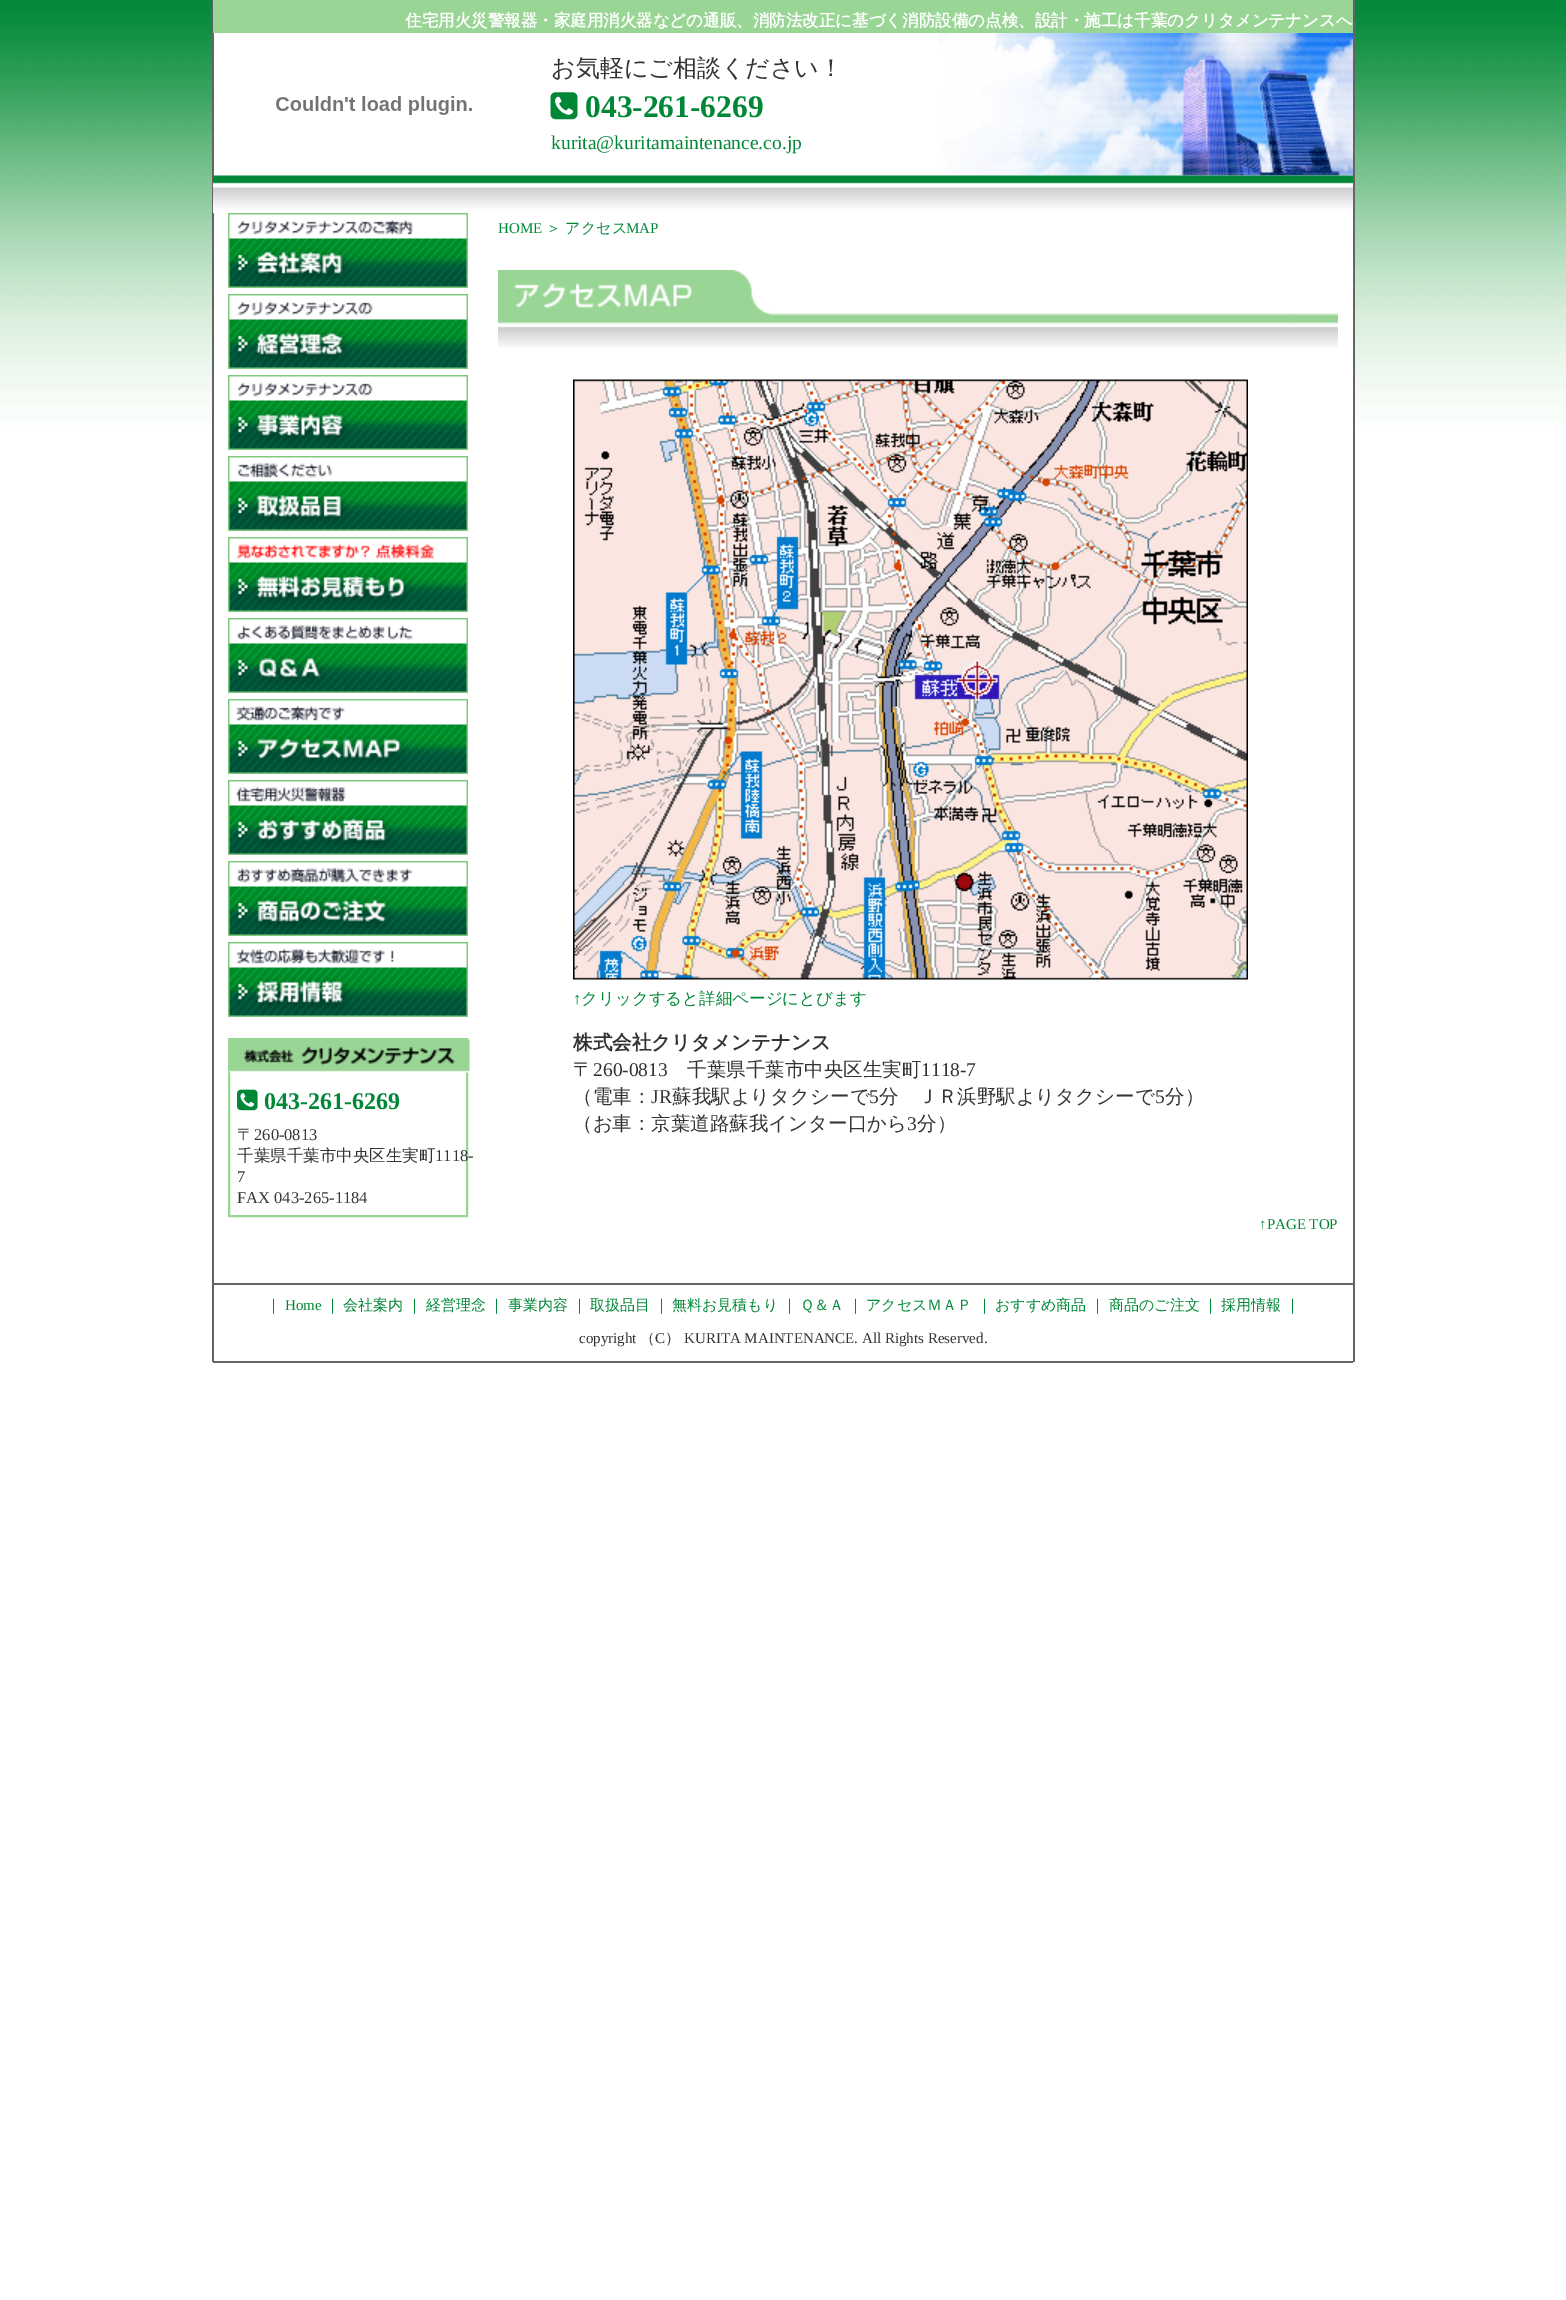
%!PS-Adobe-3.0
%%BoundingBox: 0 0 1566 2300
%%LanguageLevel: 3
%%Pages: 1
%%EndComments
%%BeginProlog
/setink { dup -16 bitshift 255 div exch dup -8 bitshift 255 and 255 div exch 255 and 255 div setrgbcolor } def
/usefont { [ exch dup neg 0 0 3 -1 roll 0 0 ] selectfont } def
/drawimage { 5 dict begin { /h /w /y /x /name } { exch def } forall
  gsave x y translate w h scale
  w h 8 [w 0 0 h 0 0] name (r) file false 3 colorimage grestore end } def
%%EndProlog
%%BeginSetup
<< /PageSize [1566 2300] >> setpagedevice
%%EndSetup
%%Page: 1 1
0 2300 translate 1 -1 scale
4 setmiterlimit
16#FFFFFF setink
0 0 1566 2300 rectfill
(img1.raw) 0 0 1566 426 drawimage
[
    [214 33 1139 393 16#FFFFFF]
    [1353 0 2 1362 16#646464]
    [212 0 2 1362 16#646464]
    [213 0 1140 33 16#99D594]
] { aload pop setink rectfill } forall
/WenQuanYiZenHei-Bold 16.5 usefont
16#FFFFFF setink
405 26 moveto (住宅用火災警報器・家庭用消火器などの通販、消防法改正に基づく消防設備の点検、設計・施工は千葉のクリタメンテナンスへ) show
(img2.raw) 276 96 196 19 drawimage
(img3.raw) 938 33 415 143 drawimage
/WenQuanYiZenHei-Medium 24 usefont
16#333333 setink
551 76 moveto (お気軽にご相談ください！) show
(img4.raw) 550 92 28 28 drawimage
/LiberationSerif-Bold 31.5 usefont
16#008837 setink
585 117 moveto (043-261-6269) show
/LiberationSerif-Regular 19.5 usefont
551 149 moveto (kurita@kuritamaintenance.co.jp) show
(img5.raw) 213 175 1140 38 drawimage
(img6.raw) 228 213 240 75 drawimage
(img7.raw) 228 294 240 75 drawimage
(img8.raw) 228 375 240 75 drawimage
(img9.raw) 228 456 240 75 drawimage
(img10.raw) 228 537 240 75 drawimage
(img11.raw) 228 618 240 75 drawimage
(img12.raw) 228 699 240 75 drawimage
(img13.raw) 228 780 240 75 drawimage
(img14.raw) 228 861 240 75 drawimage
(img15.raw) 228 942 240 75 drawimage
16#99D594 setink
2 setlinewidth
229 1039 238 177 rectstroke
(img16.raw) 229 1039 241 34 drawimage
(img17.raw) 237 1089 21 22 drawimage
/LiberationSerif-Bold 24 usefont
16#008837 setink
264 1109 moveto (043-261-6269) show
/WenQuanYiZenHei-Medium 16.5 usefont
16#333333 setink
237 1140 moveto (〒) show
/LiberationSerif-Regular 16.5 usefont
254 1140 moveto (260-0813) show
/WenQuanYiZenHei-Medium 16.5 usefont
237 1161 moveto (千葉県千葉市中央区生実町) show
/LiberationSerif-Regular 16.5 usefont
[
    [(1118-) 435 1161]
    [(7) 237 1182]
    [(FAX 043-265-1184) 237 1203]
] { aload pop moveto show } forall
/LiberationSerif-Regular 15 usefont
16#008837 setink
498 233 moveto (HOME) show
/WenQuanYiZenHei-Medium 15 usefont
546 233 moveto (＞ アクセス) show
/LiberationSerif-Regular 15 usefont
626 233 moveto (MAP) show
(img18.raw) 498 270 840 78 drawimage
(img19.raw) 573 379 675 601 drawimage
/LiberationSerif-Regular 16.5 usefont
573 1004 moveto (↑) show
/WenQuanYiZenHei-Medium 16.5 usefont
581 1004 moveto (クリックすると詳細ページにとびます) show
/WenQuanYiZenHei-Bold 19.5 usefont
16#333333 setink
573 1049 moveto (株式会社クリタメンテナンス) show
/WenQuanYiZenHei-Medium 19.5 usefont
573 1076 moveto (〒) show
/LiberationSerif-Regular 19.5 usefont
593 1076 moveto (260-0813) show
/WenQuanYiZenHei-Medium 19.5 usefont
687 1076 moveto (千葉県千葉市中央区生実町) show
/LiberationSerif-Regular 19.5 usefont
921 1076 moveto (1118-7) show
/WenQuanYiZenHei-Medium 19.5 usefont
573 1103 moveto (（電車：) show
/LiberationSerif-Regular 19.5 usefont
651 1103 moveto (JR) show
/WenQuanYiZenHei-Medium 19.5 usefont
672 1103 moveto (蘇我駅よりタクシーで) show
/LiberationSerif-Regular 19.5 usefont
869 1103 moveto (5) show
/WenQuanYiZenHei-Medium 19.5 usefont
879 1103 moveto (分　ＪＲ浜野駅よりタクシーで) show
/LiberationSerif-Regular 19.5 usefont
1155 1103 moveto (5) show
/WenQuanYiZenHei-Medium 19.5 usefont
1165 1103 moveto (分）) show
573 1130 moveto (（お車：京葉道路蘇我インター口から) show
/LiberationSerif-Regular 19.5 usefont
907 1130 moveto (3) show
/WenQuanYiZenHei-Medium 19.5 usefont
917 1130 moveto (分）) show
/LiberationSerif-Regular 15 usefont
16#008837 setink
1259 1229 moveto (↑PAGE TOP) show
16#646464 setink
213 1283 1140 2 rectfill
/WenQuanYiZenHei-Medium 15 usefont
16#008837 setink
266 1310 moveto (｜) show
/LiberationSerif-Regular 15 usefont
285 1310 moveto (Home) show
/WenQuanYiZenHei-Medium 15 usefont
[
    [(｜) 325 1310]
    [(会社案内) 343 1310]
    [(｜) 407 1310]
    [(経営理念) 426 1310]
    [(｜) 489 1310]
    [(事業内容) 508 1310]
    [(｜) 572 1310]
    [(取扱品目) 590 1310]
    [(｜) 654 1310]
    [(無料お見積もり) 672 1310]
    [(｜) 782 1310]
    [(Ｑ＆Ａ) 800 1310]
    [(｜) 848 1310]
    [(アクセスＭＡＰ) 866 1310]
    [(｜) 977 1310]
    [(おすすめ商品) 995 1310]
    [(｜) 1090 1310]
    [(商品のご注文) 1109 1310]
    [(｜) 1203 1310]
    [(採用情報) 1221 1310]
    [(｜) 1285 1310]
] { aload pop moveto show } forall
16#646464 setink
213 1361 1140 2 rectfill
/LiberationSerif-Regular 15 usefont
16#333333 setink
579 1343 moveto (copyright) show
/WenQuanYiZenHei-Medium 15 usefont
640 1343 moveto (（) show
/LiberationSerif-Regular 15 usefont
655 1343 moveto (C) show
/WenQuanYiZenHei-Medium 15 usefont
665 1343 moveto (）) show
/LiberationSerif-Regular 15 usefont
684 1343 moveto (KURITA MAINTENANCE. All Rights Reserved.) show
showpage
%%EOF
